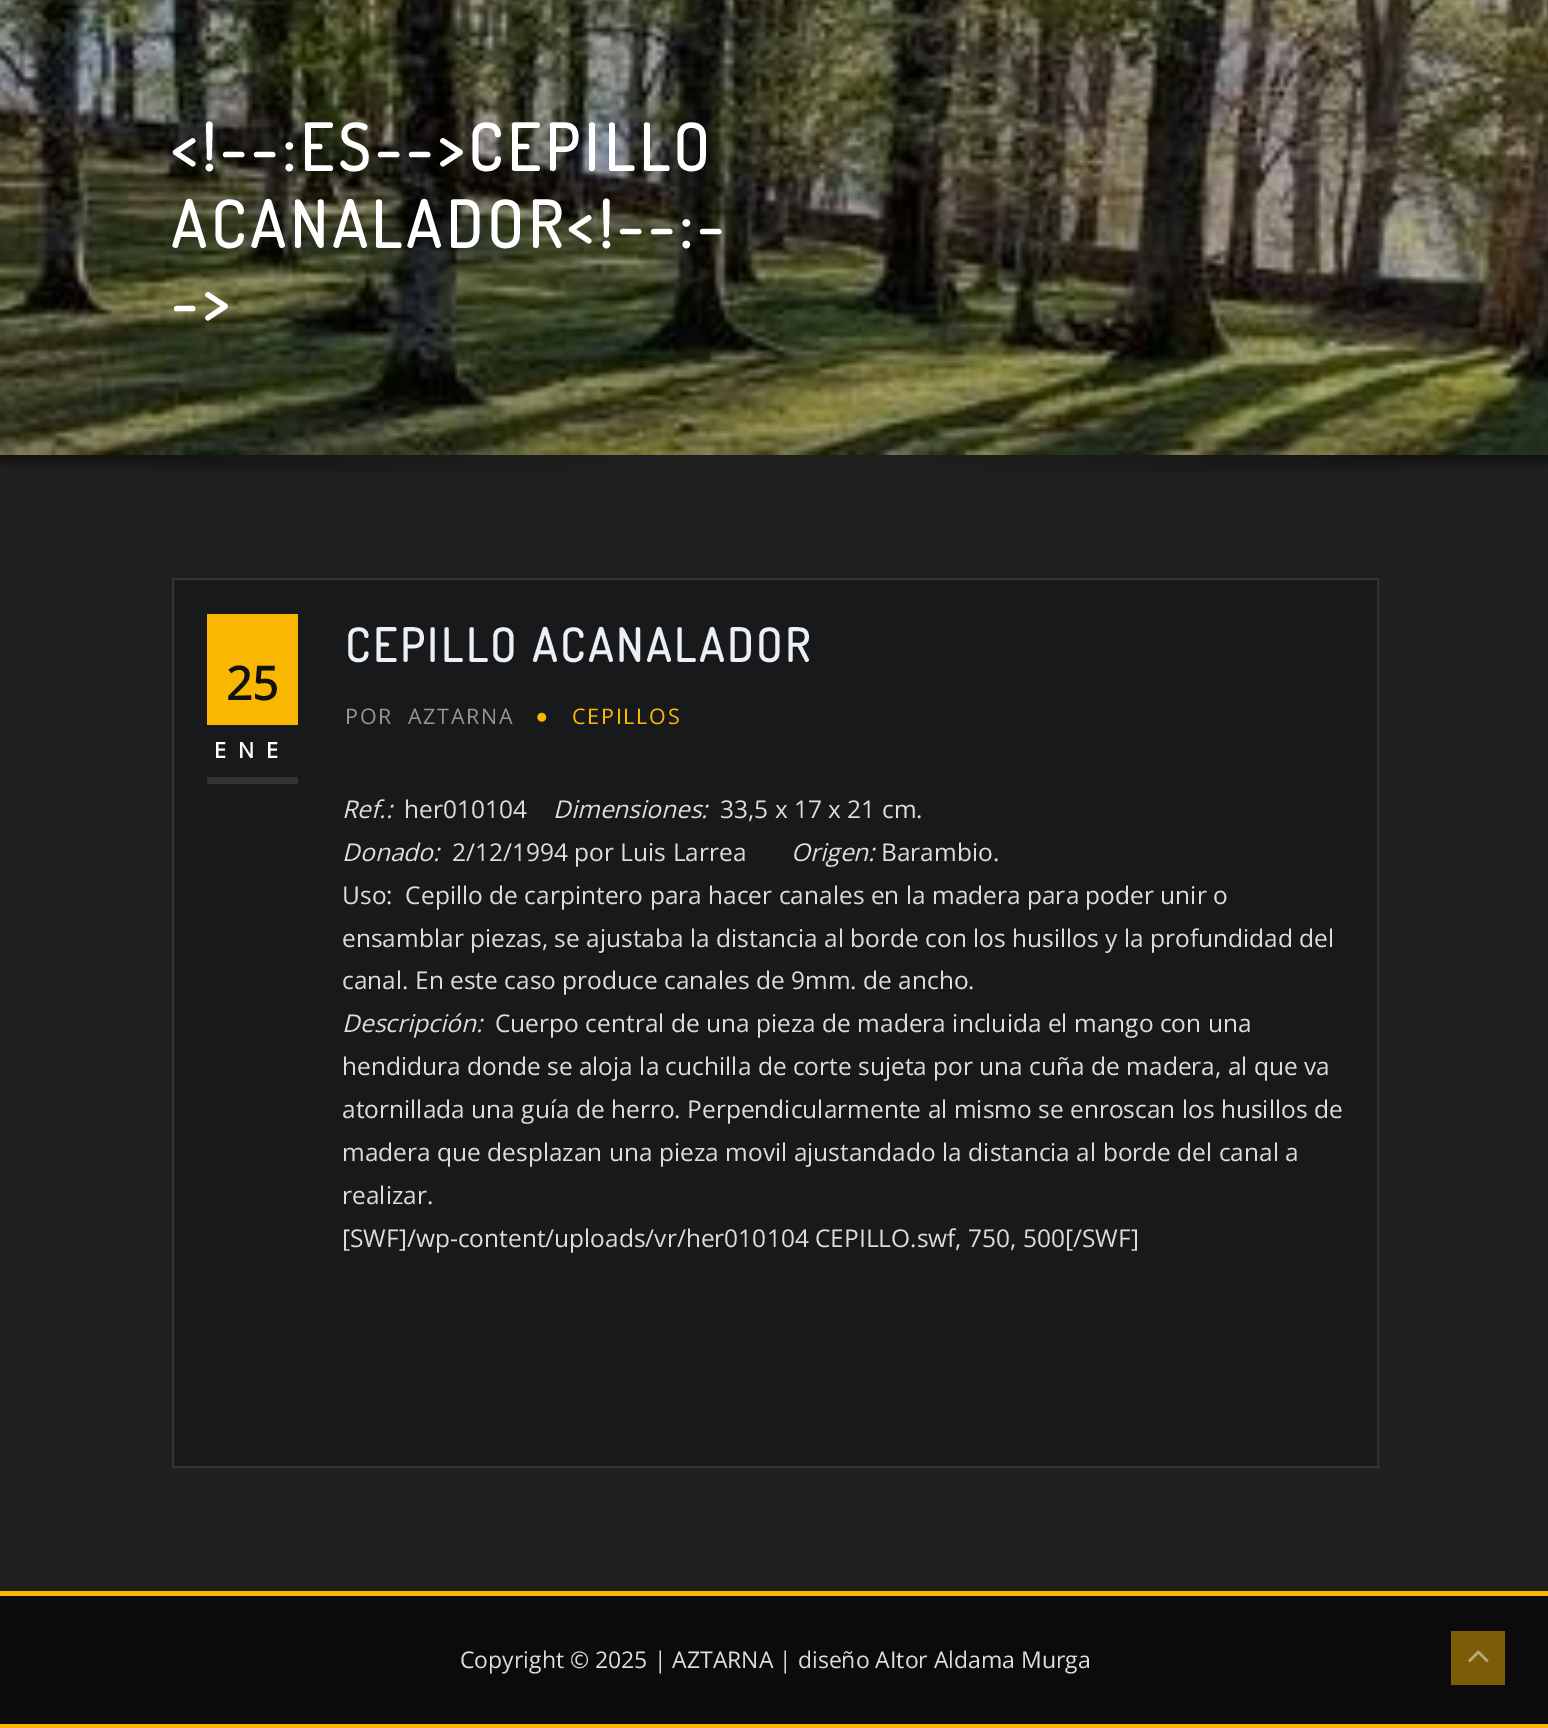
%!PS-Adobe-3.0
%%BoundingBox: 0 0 1548 1728
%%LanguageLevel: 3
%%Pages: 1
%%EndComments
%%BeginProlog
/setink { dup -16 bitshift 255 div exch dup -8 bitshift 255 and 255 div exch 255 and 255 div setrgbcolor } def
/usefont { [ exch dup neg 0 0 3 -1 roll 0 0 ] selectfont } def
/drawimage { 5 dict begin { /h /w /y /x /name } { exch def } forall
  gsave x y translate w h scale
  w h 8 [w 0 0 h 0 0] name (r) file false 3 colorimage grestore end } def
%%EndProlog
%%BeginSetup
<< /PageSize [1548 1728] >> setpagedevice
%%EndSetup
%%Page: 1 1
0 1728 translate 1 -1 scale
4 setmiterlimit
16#FFFFFF setink
0 0 1548 1728 rectfill
(img1.raw) 0 0 1548 455 drawimage
/Dosis-Bold 64.25 usefont
171 171 moveto 5.25 0 (<!--:ES-->CEPILLO) ashow
171 248 moveto 5.25 0 (ACANALADOR<!--:-) ashow
171 325 moveto 5.25 0 (->) ashow
16#202020 setink
0 455 1548 1136 rectfill
(img2.raw) 0 455 1548 17 drawimage
16#18191B setink
173 579 moveto 1378 579 lineto 1378 1467 lineto 173 1467 lineto closepath gsave fill grestore
16#333333 setink
2 setlinewidth
stroke
16#FAB702 setink
207 614 91 111 rectfill
/OpenSans-Bold 46 usefont
16#111111 setink
226 700 moveto (25) show
16#333333 setink
207 777 91 7 rectfill
/OpenSans-Bold 21.5 usefont
16#FFFFFF setink
214 758 moveto 12 0 (ENE) ashow
/Dosis-Bold 46 usefont
16#ECEFF3 setink
345 662 moveto 3.5 0 (CEPILLO ACANALADOR) ashow
/OpenSans-Regular 21.5 usefont
16#959595 setink
345 724 moveto 1.75 0 (POR) ashow
408 724 moveto 1.75 0 (AZTARNA) ashow
(img3.raw) 537 712 10 10 drawimage
16#FAB702 setink
572 724 moveto 1.75 0 (CEPILLOS) ashow
/OpenSans-Italic 24.5 usefont
16#DDDDDD setink
342 818 moveto (Ref.:) show
/OpenSans-Regular 24.5 usefont
404 818 moveto (her010104) show
/OpenSans-Italic 24.5 usefont
553 818 moveto (Dimensiones:) show
/OpenSans-Regular 24.5 usefont
720 818 moveto (33,5 x 17 x 21 cm.) show
/OpenSans-Italic 24.5 usefont
342 861 moveto (Donado:) show
/OpenSans-Regular 24.5 usefont
452 861 moveto (2/12/1994 por Luis Larrea) show
/OpenSans-Italic 24.5 usefont
791 861 moveto (Origen:) show
/OpenSans-Regular 24.5 usefont
[
    [(Barambio.) 881 861]
    [(Uso:  Cepillo de carpintero para hacer canales en la madera para poder unir o) 342 904]
    [(ensamblar piezas, se ajustaba la distancia al borde con los husillos y la profundidad del) 342 947]
    [(canal. En este caso produce canales de 9mm. de ancho.) 342 989]
] { aload pop moveto show } forall
/OpenSans-Italic 24.5 usefont
342 1032 moveto (Descripción:) show
/OpenSans-Regular 24.5 usefont
[
    [(Cuerpo central de una pieza de madera incluida el mango con una) 495 1032]
    [(hendidura donde se aloja la cuchilla de corte sujeta por una cuña de madera, al que va) 342 1075]
    [(atornillada una guía de herro. Perpendicularmente al mismo se enroscan los husillos de) 342 1118]
    [(madera que desplazan una pieza movil ajustandado la distancia al borde del canal a) 342 1161]
    [(realizar.) 342 1204]
    [([SWF]/wp-content/uploads/vr/her010104 CEPILLO.swf, 750, 500[/SWF]) 342 1247]
] { aload pop moveto show } forall
[
    [0 1591 1548 5 16#FAB702]
    [0 1724 1548 4 16#FAB702]
    [0 1596 1548 128 16#0B0B0B]
] { aload pop setink rectfill } forall
/OpenSans-Regular 23 usefont
16#DDDDDD setink
460 1668 moveto (Copyright © 2025 | AZTARNA | diseño AItor Aldama Murga) show
16#7C5C07 setink
1451 1631 54 54 rectfill
(img4.raw) 1468 1650 21 13 drawimage
showpage
%%EOF
